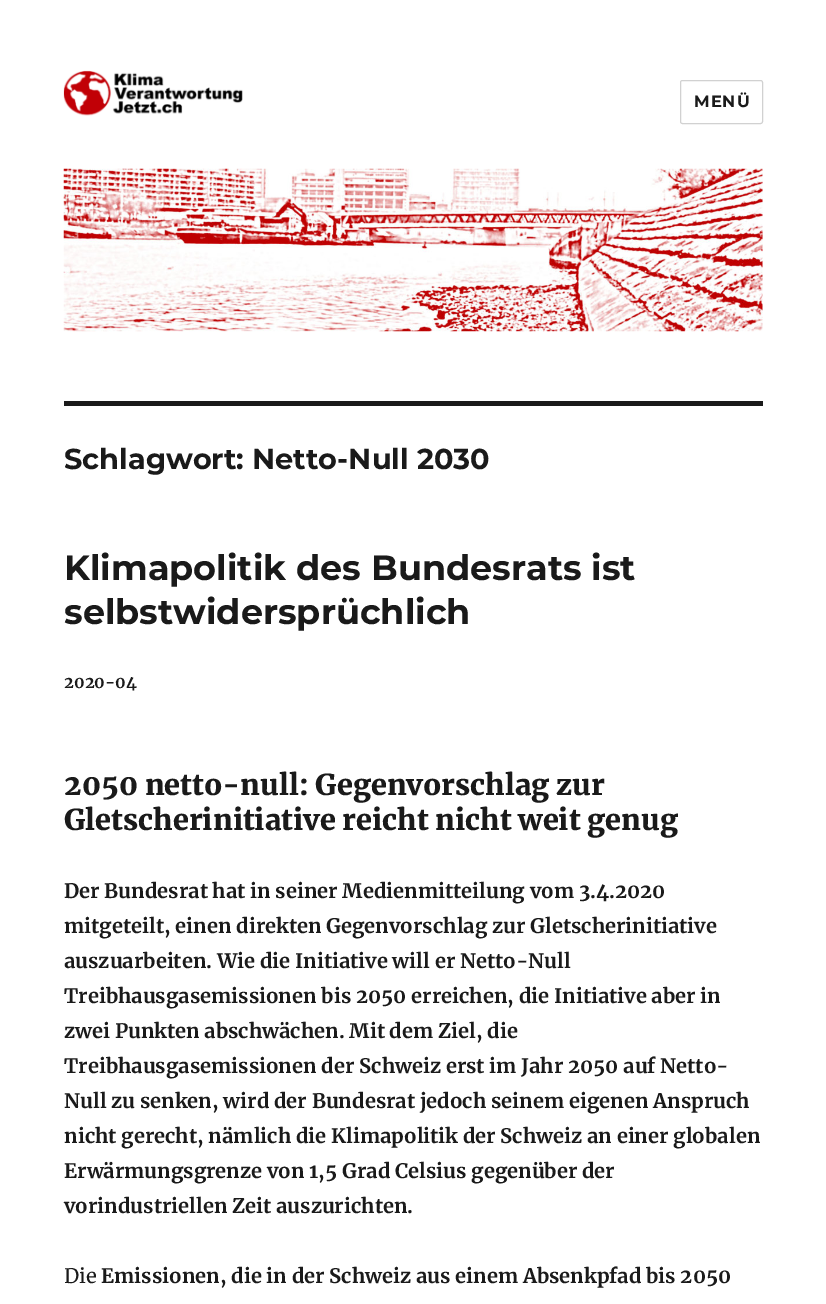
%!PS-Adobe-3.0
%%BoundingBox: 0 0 826 1304
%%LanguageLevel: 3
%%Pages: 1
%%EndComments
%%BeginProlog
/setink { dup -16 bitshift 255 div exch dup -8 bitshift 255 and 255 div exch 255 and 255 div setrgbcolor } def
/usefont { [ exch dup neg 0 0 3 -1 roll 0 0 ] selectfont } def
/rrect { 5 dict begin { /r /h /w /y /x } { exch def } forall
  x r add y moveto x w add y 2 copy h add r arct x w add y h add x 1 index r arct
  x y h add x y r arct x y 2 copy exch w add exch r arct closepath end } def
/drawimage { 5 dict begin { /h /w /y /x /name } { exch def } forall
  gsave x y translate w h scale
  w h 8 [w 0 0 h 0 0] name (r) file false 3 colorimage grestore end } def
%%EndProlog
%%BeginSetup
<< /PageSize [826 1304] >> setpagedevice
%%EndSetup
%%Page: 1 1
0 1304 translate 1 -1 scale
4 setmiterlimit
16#FFFFFF setink
0 0 826 1304 rectfill
(img1.raw) 63 70 180 46 drawimage
16#D1D1D1 setink
680.5 80.5 82 43 2 rrect stroke
/Montserrat-Thin 16.25 usefont
16#1A1A1A setink
694 107 moveto 1 0 (MENÜ) ashow
(img2.raw) 63 168 700 164 drawimage
64 401 699 5 rectfill
/Montserrat-Thin 28.75 usefont
64 469 moveto (Schlagwort: Netto-Null 2030) show
/Montserrat-Thin 35 usefont
64 580 moveto (Klimapolitik des Bundesrats ist) show
64 624 moveto (selbstwidersprüchlich) show
/Merriweather-Bold 16.25 usefont
64 688 moveto (2020-04) show
/Merriweather-Black 28.75 usefont
64 795 moveto (2050 netto-null: Gegenvorschlag zur) show
64 830 moveto (Gletscherinitiative reicht nicht weit genug) show
/Merriweather-Bold 20 usefont
[
    [(Der Bundesrat hat in seiner Medienmitteilung vom 3.4.2020) 64 898]
    [(mitgeteilt, einen direkten Gegenvorschlag zur Gletscherinitiative) 64 933]
    [(auszuarbeiten. Wie die Initiative will er Netto-Null) 64 968]
    [(Treibhausgasemissionen bis 2050 erreichen, die Initiative aber in) 64 1003]
    [(zwei Punkten abschwächen. Mit dem Ziel, die) 64 1038]
    [(Treibhausgasemissionen der Schweiz erst im Jahr 2050 auf Netto-) 64 1073]
    [(Null zu senken, wird der Bundesrat jedoch seinem eigenen Anspruch) 64 1108]
    [(nicht gerecht, nämlich die Klimapolitik der Schweiz an einer globalen) 64 1143]
    [(Erwärmungsgrenze von 1,5 Grad Celsius gegenüber der) 64 1178]
    [(vorindustriellen Zeit auszurichten.) 64 1213]
] { aload pop moveto show } forall
/Merriweather-Regular 20 usefont
64 1283 moveto (Die) show
/Merriweather-Bold 20 usefont
101 1283 moveto (Emissionen, die in der Schweiz aus einem Absenkpfad bis 2050) show
showpage
%%EOF
